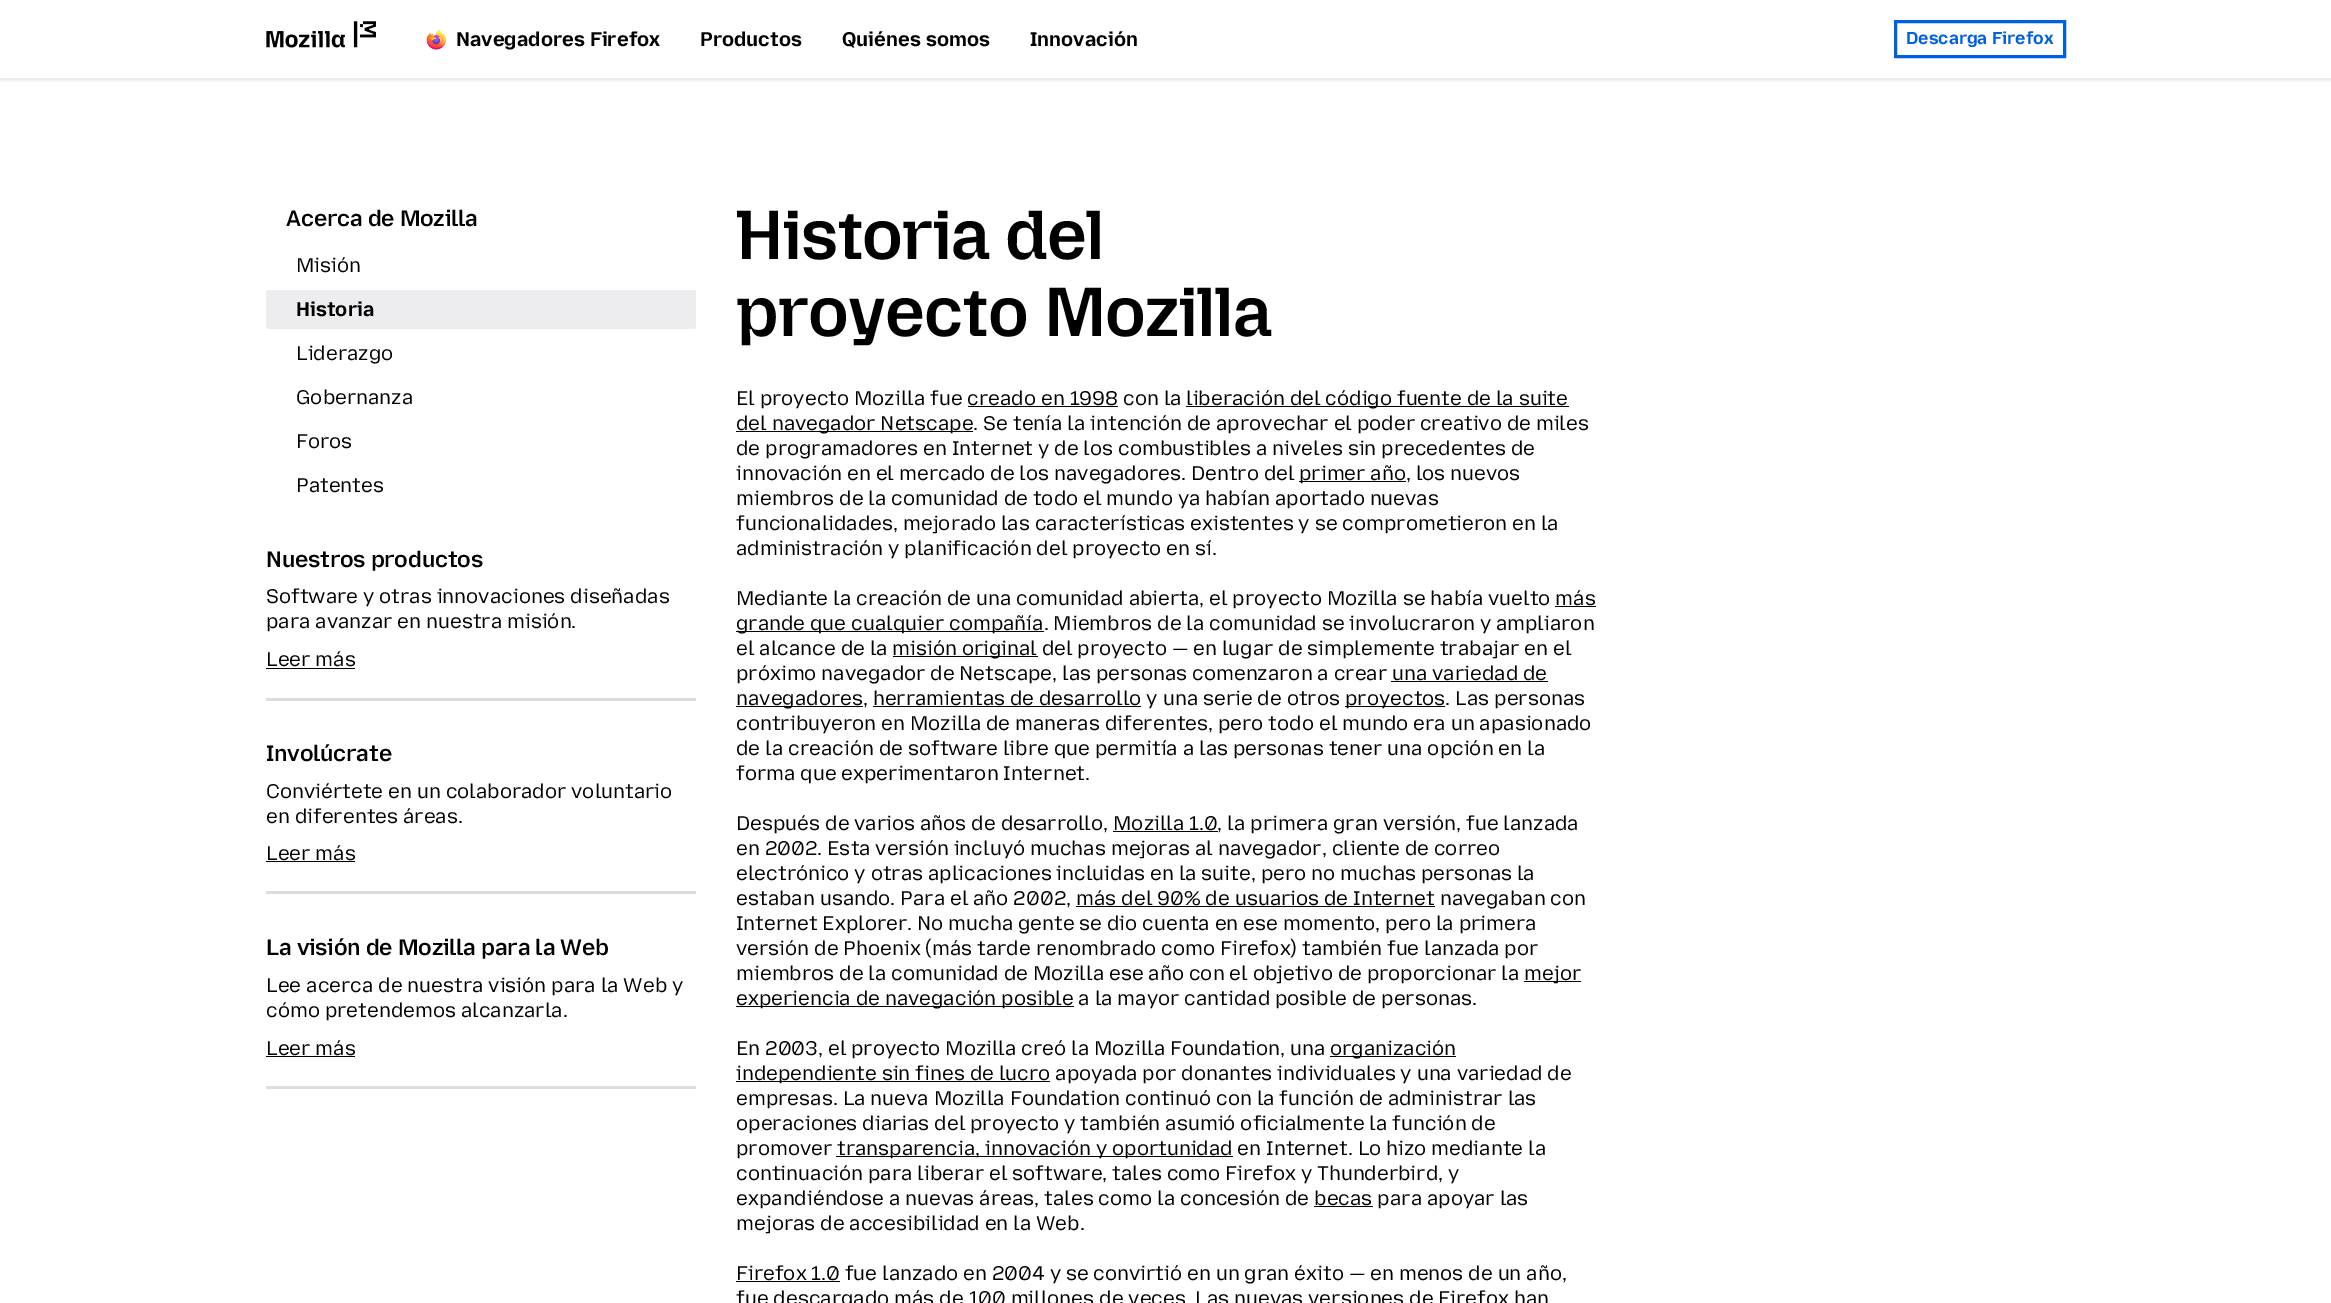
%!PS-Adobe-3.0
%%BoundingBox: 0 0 2331 1303
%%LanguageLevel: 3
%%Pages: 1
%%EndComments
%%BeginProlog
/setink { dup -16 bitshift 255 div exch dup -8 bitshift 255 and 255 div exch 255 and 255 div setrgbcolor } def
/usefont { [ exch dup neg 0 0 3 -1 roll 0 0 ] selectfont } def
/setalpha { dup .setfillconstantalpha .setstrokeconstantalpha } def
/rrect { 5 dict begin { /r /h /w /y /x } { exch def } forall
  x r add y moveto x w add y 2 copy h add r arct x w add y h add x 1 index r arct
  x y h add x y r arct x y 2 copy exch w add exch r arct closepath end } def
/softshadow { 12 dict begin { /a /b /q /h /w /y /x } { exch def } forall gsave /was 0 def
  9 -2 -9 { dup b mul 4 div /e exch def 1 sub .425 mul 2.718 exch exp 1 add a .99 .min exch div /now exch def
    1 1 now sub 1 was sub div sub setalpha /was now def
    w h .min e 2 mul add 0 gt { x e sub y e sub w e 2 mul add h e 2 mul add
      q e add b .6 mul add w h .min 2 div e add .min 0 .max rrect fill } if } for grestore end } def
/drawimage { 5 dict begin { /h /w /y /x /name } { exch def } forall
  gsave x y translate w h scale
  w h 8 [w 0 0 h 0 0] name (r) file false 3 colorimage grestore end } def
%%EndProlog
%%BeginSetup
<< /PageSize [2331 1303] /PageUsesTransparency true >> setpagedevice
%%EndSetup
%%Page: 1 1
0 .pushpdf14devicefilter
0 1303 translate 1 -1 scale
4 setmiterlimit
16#FFFFFF setink
0 0 2331 1303 rectfill
16#09204D setink
-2 -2 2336 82 0 2 0.12 softshadow
16#FFFFFF setink
0 0 2331 78 rectfill
(img1.raw) 266 21 110 27 drawimage
(img2.raw) 426 30 20 20 drawimage
/MozillaText-Bold 20 usefont
16#000000 setink
[
    [(Navegadores Firefox) 456 46]
    [(Productos) 700 46]
    [(Quiénes somos) 842 46]
    [(Innovación) 1030 46]
] { aload pop moveto show } forall
16#0060DF setink
3 setlinewidth
1895.5 21.5 169 35 rectstroke
/MozillaText-Bold 17.5 usefont
1906 44 moveto (Descarga Firefox) show
/MozillaText-SemiBold 22.5 usefont
16#000000 setink
286 226 moveto -0.25 0 (Acerca de Mozilla) ashow
/MozillaText-Regular 20 usefont
296 272 moveto (Misión) show
16#EDEDF0 setink
266 290 430 39 2.5 rrect fill
/MozillaText-Bold 20 usefont
16#000000 setink
296 316 moveto (Historia) show
/MozillaText-Regular 20 usefont
[
    [(Liderazgo) 296 360]
    [(Gobernanza) 296 404]
    [(Foros) 296 448]
    [(Patentes) 296 492]
] { aload pop moveto show } forall
16#DDDDDD setink
266 698 430 3 rectfill
/MozillaText-SemiBold 22.5 usefont
16#000000 setink
266 567 moveto -0.25 0 (Nuestros productos) ashow
/MozillaText-Regular 20 usefont
[
    [(Software y otras innovaciones diseñadas) 266 603]
    [(para avanzar en nuestra misión.) 266 628]
    [(Leer más) 266 666]
] { aload pop moveto show } forall
266 668 89 1 rectfill
16#DDDDDD setink
266 891 430 3 rectfill
/MozillaText-SemiBold 22.5 usefont
16#000000 setink
266 761 moveto -0.25 0 (Involúcrate) ashow
/MozillaText-Regular 20 usefont
[
    [(Conviértete en un colaborador voluntario) 266 798]
    [(en diferentes áreas.) 266 823]
    [(Leer más) 266 860]
] { aload pop moveto show } forall
266 861 89 1 rectfill
16#DDDDDD setink
266 1086 430 3 rectfill
/MozillaText-SemiBold 22.5 usefont
16#000000 setink
266 955 moveto -0.25 0 (La visión de Mozilla para la Web) ashow
/MozillaText-Regular 20 usefont
[
    [(Lee acerca de nuestra visión para la Web y) 266 992]
    [(cómo pretendemos alcanzarla.) 266 1017]
    [(Leer más) 266 1055]
] { aload pop moveto show } forall
266 1056 89 1 rectfill
/MozillaHeadline-SemiBold 70 usefont
736 259 moveto -0.75 0 (Historia del) ashow
736 336 moveto -0.75 0 (proyecto Mozilla) ashow
/MozillaText-Regular 20 usefont
736 405 moveto (El proyecto Mozilla fue creado en 1998 con la) show
1186 406 383 1 rectfill
1186 405 moveto (liberación del código fuente de la suite) show
968 406 150 1 rectfill
736 431 237 1 rectfill
[
    [(del navegador Netscape. Se tenía la intención de aprovechar el poder creativo de miles) 736 430]
    [(de programadores en Internet y de los combustibles a niveles sin precedentes de) 736 455]
    [(innovación en el mercado de los navegadores. Dentro del) 736 480]
] { aload pop moveto show } forall
1299 481 107 1 rectfill
[
    [(primer año, los nuevos) 1299 480]
    [(miembros de la comunidad de todo el mundo ya habían aportado nuevas) 736 505]
    [(funcionalidades, mejorado las características existentes y se comprometieron en la) 736 530]
    [(administración y planificación del proyecto en sí.) 736 555]
    [(Mediante la creación de una comunidad abierta, el proyecto Mozilla se había vuelto más) 736 605]
] { aload pop moveto show } forall
736 631 308 1 rectfill
736 630 moveto (grande que cualquier compañía. Miembros de la comunidad se involucraron y ampliaron) show
1555 606 41 1 rectfill
736 655 moveto (el alcance de la) show
893 656 145 1 rectfill
892 655 moveto (misión original del proyecto — en lugar de simplemente trabajar en el) show
736 680 moveto (próximo navegador de Netscape, las personas comenzaron a crear una variedad de) show
736 706 127 1 rectfill
736 705 moveto (navegadores, herramientas de desarrollo y una serie de otros) show
1391 681 157 1 rectfill
1345 706 100 1 rectfill
1345 705 moveto (proyectos. Las personas) show
873 706 268 1 rectfill
[
    [(contribuyeron en Mozilla de maneras diferentes, pero todo el mundo era un apasionado) 736 730]
    [(de la creación de software libre que permitía a las personas tener una opción en la) 736 755]
    [(forma que experimentaron Internet.) 736 780]
    [(Después de varios años de desarrollo, Mozilla 1.0, la primera gran versión, fue lanzada) 736 830]
] { aload pop moveto show } forall
1113 831 105 1 rectfill
[
    [(en 2002. Esta versión incluyó muchas mejoras al navegador, cliente de correo) 736 855]
    [(electrónico y otras aplicaciones incluidas en la suite, pero no muchas personas la) 736 880]
    [(estaban usando. Para el año 2002, más del 90% de usuarios de Internet navegaban con) 736 905]
] { aload pop moveto show } forall
1076 906 359 1 rectfill
[
    [(Internet Explorer. No mucha gente se dio cuenta en ese momento, pero la primera) 736 930]
    [(versión de Phoenix \(más tarde renombrado como Firefox\) también fue lanzada por) 736 955]
    [(miembros de la comunidad de Mozilla ese año con el objetivo de proporcionar la) 736 980]
] { aload pop moveto show } forall
1524 981 57 1 rectfill
1524 980 moveto (mejor) show
736 1006 338 1 rectfill
736 1005 moveto (experiencia de navegación posible a la mayor cantidad posible de personas.) show
736 1055 moveto (En 2003, el proyecto Mozilla creó la Mozilla Foundation, una) show
1330 1056 126 1 rectfill
1330 1055 moveto (organización) show
736 1081 314 1 rectfill
[
    [(independiente sin fines de lucro apoyada por donantes individuales y una variedad de) 736 1080]
    [(empresas. La nueva Mozilla Foundation continuó con la función de administrar las) 736 1105]
    [(operaciones diarias del proyecto y también asumió oficialmente la función de) 736 1130]
    [(promover) 736 1155]
] { aload pop moveto show } forall
836 1156 397 1 rectfill
[
    [(transparencia, innovación y oportunidad en Internet. Lo hizo mediante la) 837 1155]
    [(continuación para liberar el software, tales como Firefox y Thunderbird, y) 736 1180]
    [(expandiéndose a nuevas áreas, tales como la concesión de becas para apoyar las) 736 1205]
] { aload pop moveto show } forall
1314 1206 59 1 rectfill
736 1230 moveto (mejoras de accesibilidad en la Web.) show
736 1281 104 1 rectfill
[
    [(Firefox 1.0 fue lanzado en 2004 y se convirtió en un gran éxito — en menos de un año,) 736 1280]
    [(fue descargado más de 100 millones de veces) 736 1305]
    [(Las nuevas versiones de Firefox han) 1195 1305]
] { aload pop moveto show } forall
.poppdf14devicefilter showpage
%%EOF
